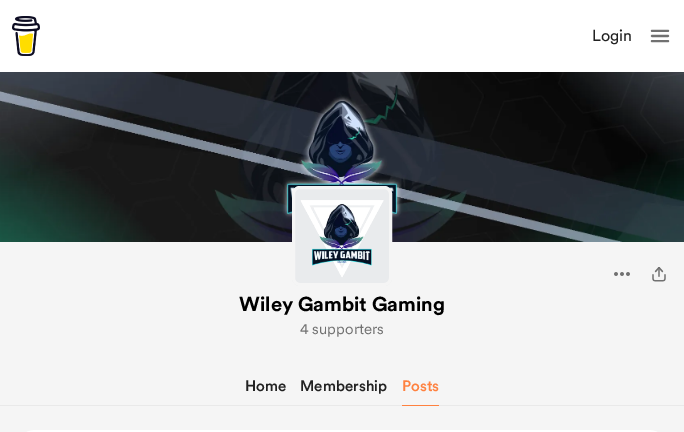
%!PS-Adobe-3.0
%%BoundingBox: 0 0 684 432
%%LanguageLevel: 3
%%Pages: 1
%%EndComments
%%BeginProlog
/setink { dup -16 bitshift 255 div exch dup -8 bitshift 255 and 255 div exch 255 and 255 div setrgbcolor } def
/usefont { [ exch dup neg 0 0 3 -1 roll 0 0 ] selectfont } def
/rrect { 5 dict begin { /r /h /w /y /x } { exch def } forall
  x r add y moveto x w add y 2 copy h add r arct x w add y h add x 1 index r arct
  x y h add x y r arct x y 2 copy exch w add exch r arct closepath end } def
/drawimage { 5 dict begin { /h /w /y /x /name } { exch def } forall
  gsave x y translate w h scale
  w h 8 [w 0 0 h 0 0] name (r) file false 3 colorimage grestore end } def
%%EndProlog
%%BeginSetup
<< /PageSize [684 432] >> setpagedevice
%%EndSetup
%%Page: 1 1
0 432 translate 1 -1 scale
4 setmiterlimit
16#FFFFFF setink
0 0 684 432 rectfill
(img1.raw) 12 16 28 40 drawimage
/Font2-Regular 16 usefont
16#222222 setink
592 41 moveto (Login) show
(img2.raw) 650 29 20 14 drawimage
16#F5F5F5 setink
0 242 684 190 rectfill
(img3.raw) 0 72 684 170 drawimage
(img4.raw) 614 272 16 4 drawimage
(img5.raw) 652 267 14 15 drawimage
(img6.raw) 292 186 100 100 drawimage
3 setlinewidth
293.5 187.5 97 97 6.5 rrect stroke
(img7.raw) 301 200 83 77 drawimage
/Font-Bold 20 usefont
16#000000 setink
239 311 moveto (Wiley Gambit Gaming) show
/Font-Regular 15 usefont
16#717171 setink
300 334 moveto (4 supporters) show
/Font-Medium 15 usefont
16#222222 setink
245 391 moveto (Home) show
300 391 moveto (Membership) show
16#FF813F setink
402 391 moveto (Posts) show
16#E9E9E9 setink
0 405 684 1 rectfill
16#FF813F setink
402 405 37 1 rectfill
16#FFFFFF setink
12 430 660 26 24 rrect fill
showpage
%%EOF
